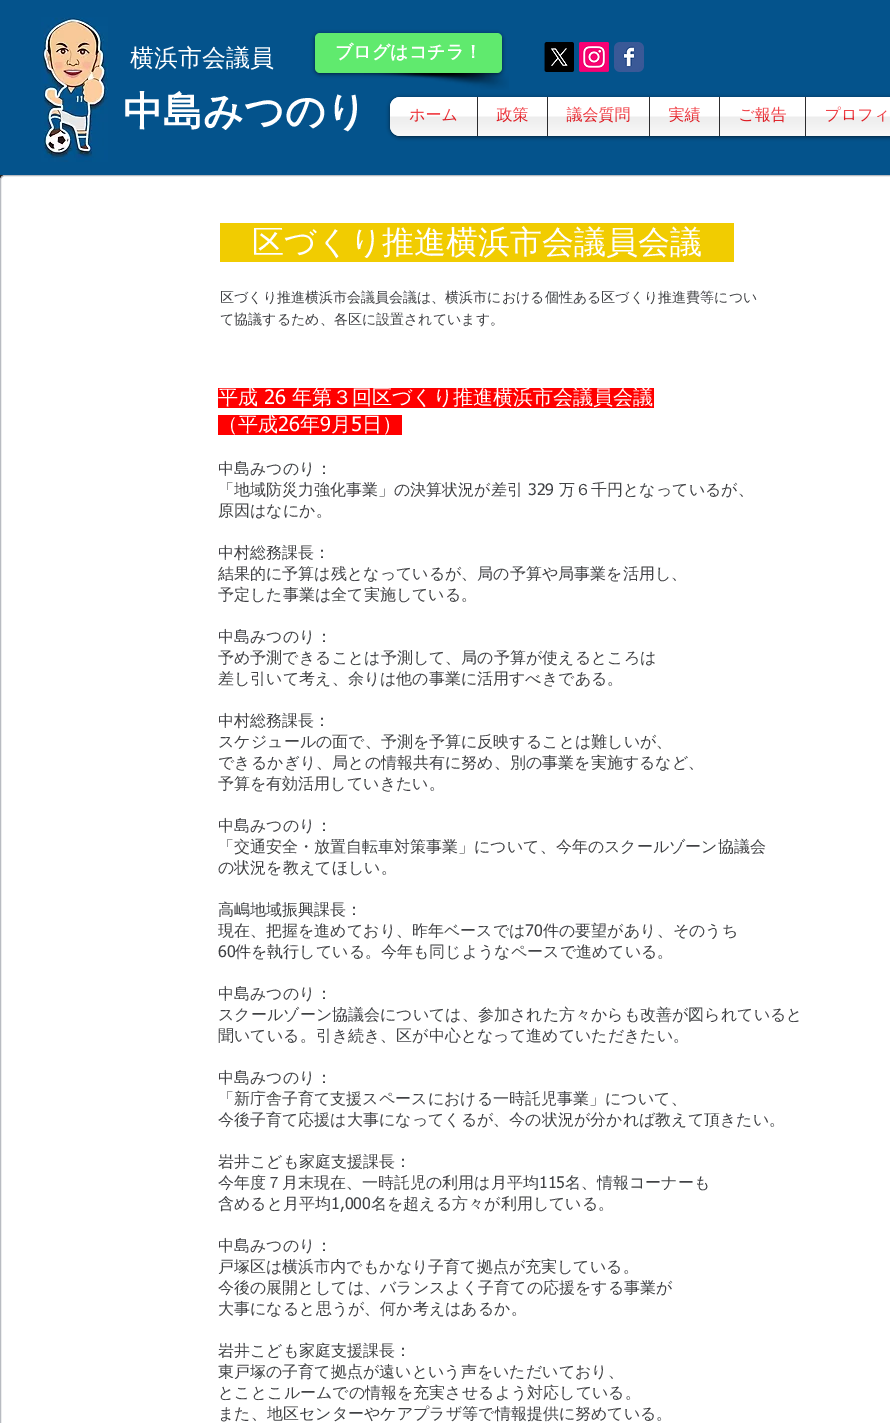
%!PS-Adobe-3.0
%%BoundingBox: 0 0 890 1423
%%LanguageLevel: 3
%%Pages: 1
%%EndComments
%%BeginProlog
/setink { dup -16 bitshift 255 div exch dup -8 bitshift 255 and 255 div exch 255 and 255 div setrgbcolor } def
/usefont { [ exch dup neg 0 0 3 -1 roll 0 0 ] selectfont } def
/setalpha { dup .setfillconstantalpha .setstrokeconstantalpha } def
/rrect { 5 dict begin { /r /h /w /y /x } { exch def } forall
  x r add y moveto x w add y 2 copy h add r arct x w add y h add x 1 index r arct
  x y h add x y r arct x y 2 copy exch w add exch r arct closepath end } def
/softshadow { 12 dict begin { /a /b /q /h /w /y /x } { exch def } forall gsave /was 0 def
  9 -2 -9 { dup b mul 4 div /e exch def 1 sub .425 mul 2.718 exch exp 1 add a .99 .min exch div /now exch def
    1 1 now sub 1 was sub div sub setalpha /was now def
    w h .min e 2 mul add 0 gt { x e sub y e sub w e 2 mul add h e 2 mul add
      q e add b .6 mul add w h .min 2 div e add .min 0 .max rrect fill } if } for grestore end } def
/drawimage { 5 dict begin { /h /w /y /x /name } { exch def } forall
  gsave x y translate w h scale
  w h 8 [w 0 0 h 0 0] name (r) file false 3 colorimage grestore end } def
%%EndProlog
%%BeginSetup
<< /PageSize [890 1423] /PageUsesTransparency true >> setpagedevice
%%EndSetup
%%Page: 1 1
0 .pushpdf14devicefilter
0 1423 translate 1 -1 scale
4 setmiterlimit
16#FFFFFF setink
0 0 890 1423 rectfill
(img1.raw) 0 175 5 5 drawimage
16#04538C setink
0 0 890 175 rectfill
(img2.raw) 41 17 67 145 drawimage
/WenQuanYiZenHei-Medium 24 usefont
16#FFFFFF setink
130 66 moveto (横浜市会議員) show
(img3.raw) 364 73 145 17 drawimage
16#000000 setink
315 34 187 40 5 2 0.6 softshadow
16#60EA6E setink
315 33 187 40 5 rrect fill
/WenQuanYiZenHei-Bold 18 usefont
16#FFFFFF setink
335 58 moveto (ブログはコチラ！) show
(img4.raw) 544 42 30 30 drawimage
(img5.raw) 579 42 30 30 drawimage
(img6.raw) 614 42 30 30 drawimage
/WenQuanYiZenHei-Bold 40 usefont
123 125 moveto (中島みつのり) show
16#000000 setink
390 98 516 39 10 2 0.6 softshadow
(img7.raw) 390 97 10 39 drawimage
16#FFFFFF setink
400 97 moveto 477 97 lineto 477 136 lineto 400 136 lineto 394.5 136 390 131.5 390 126 curveto 390 107 lineto 390 101.5 394.5 97 400 97 curveto closepath fill
/WenQuanYiZenHei-Medium 16 usefont
16#ED1C24 setink
409 120 moveto (ホーム) show
(img8.raw) 390 97 87 39 drawimage
16#FFFFFF setink
478 97 69 39 rectfill
16#2D2D2F setink
477 97 1 39 rectfill
16#ED1C24 setink
497 120 moveto (政策) show
(img9.raw) 478 107 69 29 drawimage
16#FFFFFF setink
548 97 101 39 rectfill
16#2D2D2F setink
547 97 1 39 rectfill
16#ED1C24 setink
567 120 moveto (議会質問) show
(img10.raw) 548 106 101 30 drawimage
16#FFFFFF setink
650 97 69 39 rectfill
16#2D2D2F setink
649 97 1 39 rectfill
16#ED1C24 setink
669 120 moveto (実績) show
(img11.raw) 650 106 69 30 drawimage
16#FFFFFF setink
720 97 85 39 rectfill
16#2D2D2F setink
719 97 1 39 rectfill
16#ED1C24 setink
738 120 moveto (ご報告) show
(img12.raw) 720 106 85 30 drawimage
16#FFFFFF setink
806 97 84 39 rectfill
16#2D2D2F setink
805 97 1 39 rectfill
16#ED1C24 setink
825 120 moveto (プロフィ) show
(img13.raw) 806 106 84 30 drawimage
16#FFFFFF setink
0.5 175.5 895 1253 4.5 rrect gsave fill grestore
16#B8BBC1 setink
stroke
16#F1CC01 setink
220 223 514 39 rectfill
/WenQuanYiZenHei-Medium 32 usefont
16#FFFFFF setink
252 253 moveto (区づくり推進横浜市会議員会議) show
/WenQuanYiZenHei-Medium 14 usefont
16#404144 setink
220 302 moveto (区づくり推進横浜市会議員会議は、横浜市における個性ある区づくり推進費等につい) show
220 324 moveto (て協議するため、各区に設置されています。) show
16#FF0000 setink
218 388 436 20 rectfill
/WenQuanYiZenHei-Medium 20 usefont
16#FFFFFF setink
218 404 moveto (平成) show
/tahoma-Regular 20 usefont
264 404 moveto (26) show
/WenQuanYiZenHei-Medium 20 usefont
292 404 moveto (年第３回区づくり推進横浜市会議員会議) show
16#FF0000 setink
218 415 184 20 rectfill
16#FFFFFF setink
218 431 moveto (（平成) show
/tahoma-Regular 20 usefont
278 431 moveto (26) show
/WenQuanYiZenHei-Medium 20 usefont
300 431 moveto (年) show
/tahoma-Regular 20 usefont
320 431 moveto (9) show
/WenQuanYiZenHei-Medium 20 usefont
331 431 moveto (月) show
/tahoma-Regular 20 usefont
351 431 moveto (5) show
/WenQuanYiZenHei-Medium 20 usefont
362 431 moveto (日）) show
/WenQuanYiZenHei-Medium 16 usefont
16#404144 setink
218 474 moveto (中島みつのり：) show
218 495 moveto (「地域防災力強化事業」の決算状況が差引) show
/tahoma-Regular 16 usefont
528 495 moveto (329) show
/WenQuanYiZenHei-Medium 16 usefont
[
    [(万６千円となっているが、) 559 495]
    [(原因はなにか。) 218 516]
    [(中村総務課長：) 218 558]
    [(結果的に予算は残となっているが、局の予算や局事業を活用し、) 218 579]
    [(予定した事業は全て実施している。) 218 600]
    [(中島みつのり：) 218 642]
    [(予め予測できることは予測して、局の予算が使えるところは) 218 663]
    [(差し引いて考え、余りは他の事業に活用すべきである。) 218 684]
    [(中村総務課長：) 218 726]
    [(スケジュールの面で、予測を予算に反映することは難しいが、) 218 747]
    [(できるかぎり、局との情報共有に努め、別の事業を実施するなど、) 218 768]
    [(予算を有効活用していきたい。) 218 789]
    [(中島みつのり：) 218 831]
    [(「交通安全・放置自転車対策事業」について、今年のスクールゾーン協議会) 218 852]
    [(の状況を教えてほしい。) 218 873]
    [(高嶋地域振興課長：) 218 915]
    [(現在、把握を進めており、昨年ベースでは) 218 936]
] { aload pop moveto show } forall
/tahoma-Regular 16 usefont
525 936 moveto (70) show
/WenQuanYiZenHei-Medium 16 usefont
543 936 moveto (件の要望があり、そのうち) show
/tahoma-Regular 16 usefont
218 957 moveto (60) show
/WenQuanYiZenHei-Medium 16 usefont
[
    [(件を執行している。今年も同じようなペースで進めている。) 235 957]
    [(中島みつのり：) 218 999]
    [(スクールゾーン協議会については、参加された方々からも改善が図られていると) 218 1020]
    [(聞いている。引き続き、区が中心となって進めていただきたい。) 218 1041]
    [(中島みつのり：) 218 1083]
    [(「新庁舎子育て支援スペースにおける一時託児事業」について、) 218 1104]
    [(今後子育て応援は大事になってくるが、今の状況が分かれば教えて頂きたい。) 218 1125]
    [(岩井こども家庭支援課長：) 218 1167]
    [(今年度７月末現在、一時託児の利用は月平均) 218 1188]
] { aload pop moveto show } forall
/tahoma-Regular 16 usefont
539 1188 moveto (115) show
/WenQuanYiZenHei-Medium 16 usefont
565 1188 moveto (名、情報コーナーも) show
218 1209 moveto (含めると月平均) show
/tahoma-Regular 16 usefont
331 1209 moveto (1,000) show
/WenQuanYiZenHei-Medium 16 usefont
[
    [(名を超える方々が利用している。) 371 1209]
    [(中島みつのり：) 218 1251]
    [(戸塚区は横浜市内でもかなり子育て拠点が充実している。) 218 1272]
    [(今後の展開としては、バランスよく子育ての応援をする事業が) 218 1293]
    [(大事になると思うが、何か考えはあるか。) 218 1314]
    [(岩井こども家庭支援課長：) 218 1356]
    [(東戸塚の子育て拠点が遠いという声をいただいており、) 218 1377]
    [(とことこルームでの情報を充実させるよう対応している。) 218 1398]
    [(また、地区センターやケアプラザ等で情報提供に努めている。) 218 1419]
] { aload pop moveto show } forall
.poppdf14devicefilter showpage
%%EOF
